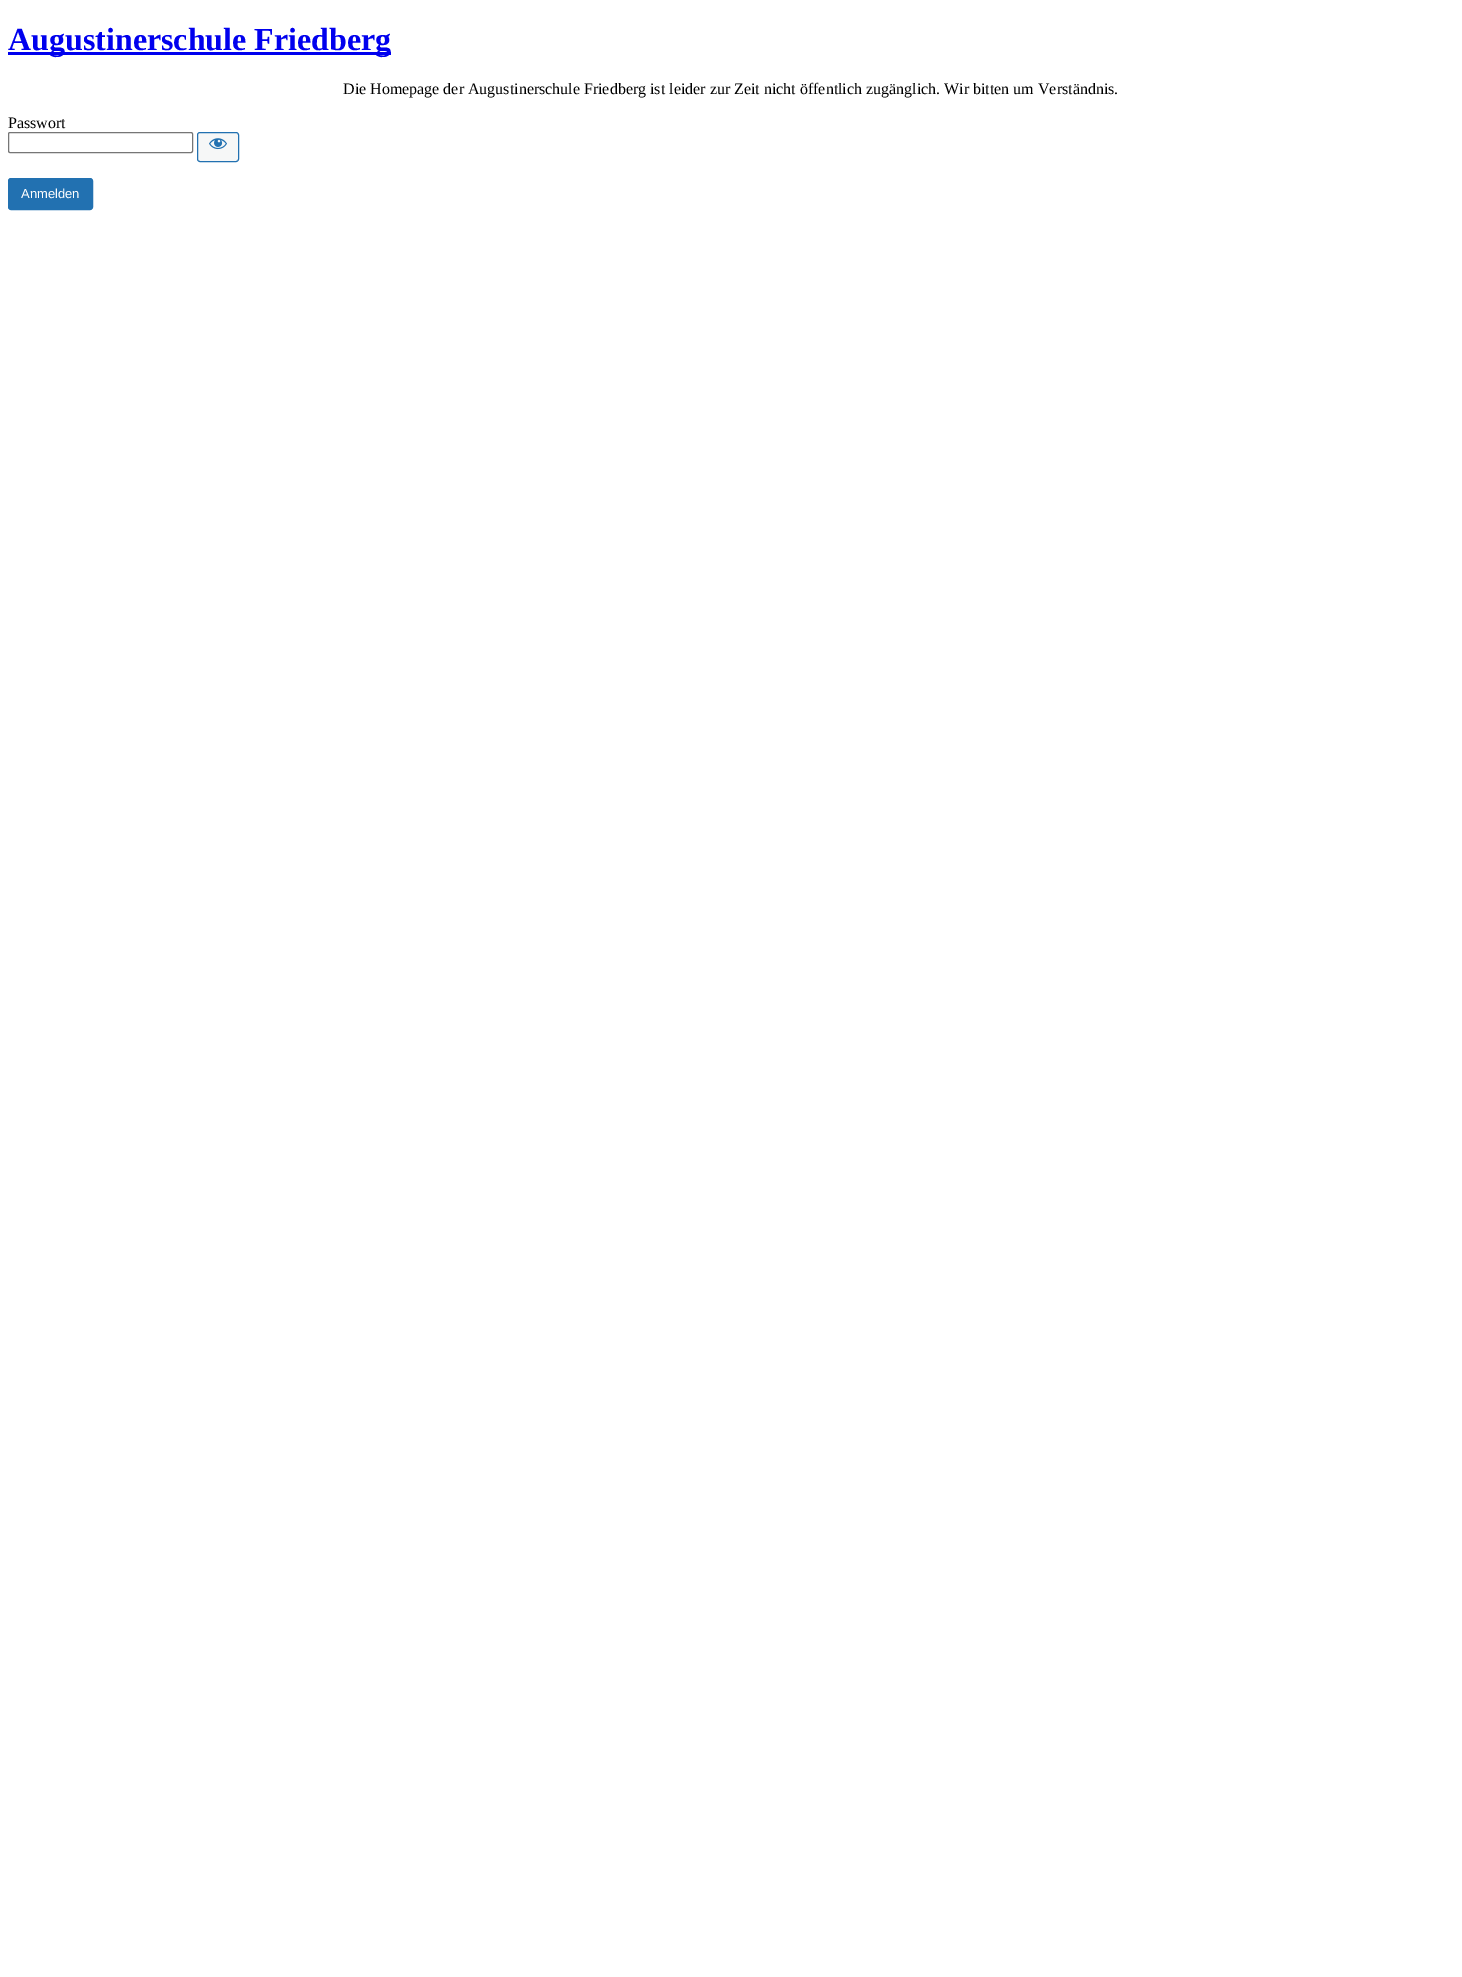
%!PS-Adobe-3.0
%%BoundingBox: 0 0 1462 1977
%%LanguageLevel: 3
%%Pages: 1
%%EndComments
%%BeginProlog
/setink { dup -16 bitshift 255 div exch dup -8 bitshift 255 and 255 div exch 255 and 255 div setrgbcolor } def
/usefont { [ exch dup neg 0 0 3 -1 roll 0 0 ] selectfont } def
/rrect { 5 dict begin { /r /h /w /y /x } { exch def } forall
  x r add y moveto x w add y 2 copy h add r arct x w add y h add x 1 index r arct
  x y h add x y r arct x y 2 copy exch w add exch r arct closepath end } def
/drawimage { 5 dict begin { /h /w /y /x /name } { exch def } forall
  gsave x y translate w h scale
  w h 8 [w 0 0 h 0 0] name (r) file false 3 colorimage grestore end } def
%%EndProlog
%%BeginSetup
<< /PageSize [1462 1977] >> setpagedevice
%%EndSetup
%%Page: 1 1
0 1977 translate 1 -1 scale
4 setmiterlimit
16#FFFFFF setink
0 0 1462 1977 rectfill
16#0000EE setink
8 52 383 3 rectfill
/LiberationSerif-Bold 32 usefont
8 50 moveto (Augustinerschule Friedberg) show
/LiberationSerif-Regular 16 usefont
16#000000 setink
343 94 moveto (Die Homepage der Augustinerschule Friedberg ist leider zur Zeit nicht öffentlich zugänglich. Wir bitten um Verständnis.) show
8 128 moveto (Passwort) show
16#767676 setink
8.5 132.5 184 20 1.5 rrect stroke
16#F6F7F7 setink
197.5 132.5 41 29 2.5 rrect gsave fill grestore
16#2271B1 setink
stroke
(img1.raw) 209 138 18 12 drawimage
8.5 178.5 84 31 2.5 rrect gsave fill grestore
stroke
/LiberationSans-Regular 13 usefont
16#FFFFFF setink
21 198 moveto (Anmelden) show
showpage
%%EOF
